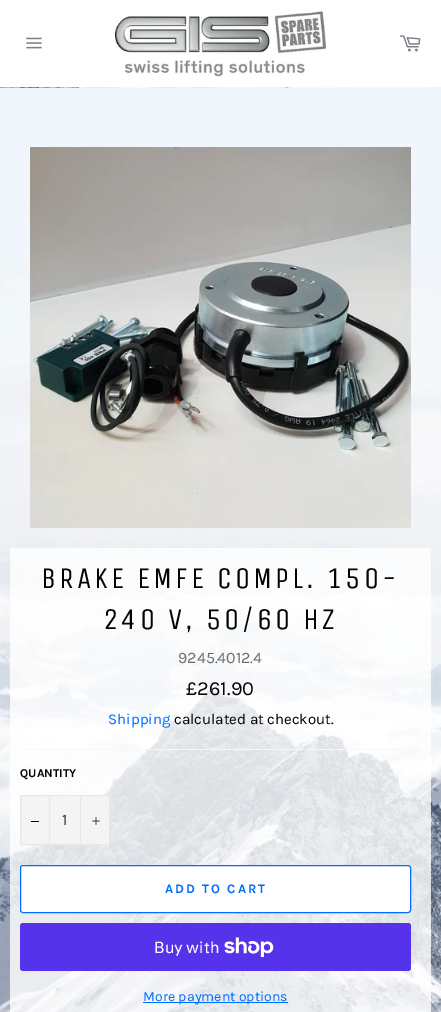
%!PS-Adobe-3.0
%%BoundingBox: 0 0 441 1012
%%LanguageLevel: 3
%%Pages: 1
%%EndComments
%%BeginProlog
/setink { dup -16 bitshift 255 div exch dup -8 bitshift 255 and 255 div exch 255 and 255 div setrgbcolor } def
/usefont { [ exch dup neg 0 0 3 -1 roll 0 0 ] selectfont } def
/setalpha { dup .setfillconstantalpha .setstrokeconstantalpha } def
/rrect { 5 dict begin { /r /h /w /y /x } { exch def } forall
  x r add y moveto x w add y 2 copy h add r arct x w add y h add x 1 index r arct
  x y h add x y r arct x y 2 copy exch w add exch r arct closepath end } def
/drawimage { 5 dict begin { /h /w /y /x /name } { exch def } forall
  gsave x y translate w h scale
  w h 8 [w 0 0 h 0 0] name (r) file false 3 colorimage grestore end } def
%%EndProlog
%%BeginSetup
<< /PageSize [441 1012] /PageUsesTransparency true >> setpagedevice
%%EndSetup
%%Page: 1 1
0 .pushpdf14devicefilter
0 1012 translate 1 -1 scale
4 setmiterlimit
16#FFFFFF setink
0 0 441 1012 rectfill
(img1.raw) 26 37 16 12 drawimage
(img2.raw) 115 10 211 67 drawimage
(img3.raw) 399 35 22 17 drawimage
(img4.raw) 0 87 441 925 drawimage
(img5.raw) 30 147 381 381 drawimage
0.8 setalpha
10 548 421 464 rectfill
/UnicaOne-Regular 30 usefont
1 setalpha
16#030303 setink
41 588 moveto 3 0 (BRAKE EMFE COMPL. 150-) ashow
103 629 moveto 3 0 (240 V, 50/60 HZ) ashow
/Karla-Regular 16 usefont
16#6B6B6B setink
178 663 moveto (9245.4012.4) show
/Karla-Regular 20 usefont
16#030303 setink
186 695 moveto (£261.90) show
/Karla-Regular 15 usefont
16#006EFF setink
108 724 moveto (Shipping) show
16#030303 setink
174 724 moveto (calculated at checkout.) show
16#F7F7F7 setink
20 749 401 1 rectfill
/Karla-Bold 12 usefont
16#030303 setink
20 777 moveto (QUANTITY) show
16#F4F4F4 setink
20.5 795.5 moveto 109.5 795.5 lineto 109.5 844.5 lineto 20.5 844.5 lineto closepath gsave fill grestore
16#E7E7E7 setink
stroke
49 795 1 50 rectfill
16#000000 setink
31 821 8 1 rectfill
/Karla-Regular 16 usefont
16#333333 setink
62 825 moveto (1) show
16#E7E7E7 setink
80 795 1 50 rectfill
(img6.raw) 92 817 8 8 drawimage
16#FFFFFF setink
20.5 865.5 390 47 2.5 rrect gsave fill grestore
16#006EFF setink
stroke
/Karla-Bold 13 usefont
165 893 moveto 2 0 (ADD TO CART) ashow
16#5433EB setink
20 923 391 48 3 rrect fill
/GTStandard-Regular 16 usefont
16#FFFFFF setink
154 953 moveto (Buy with) show
(img7.raw) 224 937 50 20 drawimage
16#006EFF setink
143 1002 145 1 rectfill
/Karla-Regular 14 usefont
143 1001 moveto (More payment options) show
.poppdf14devicefilter showpage
%%EOF
